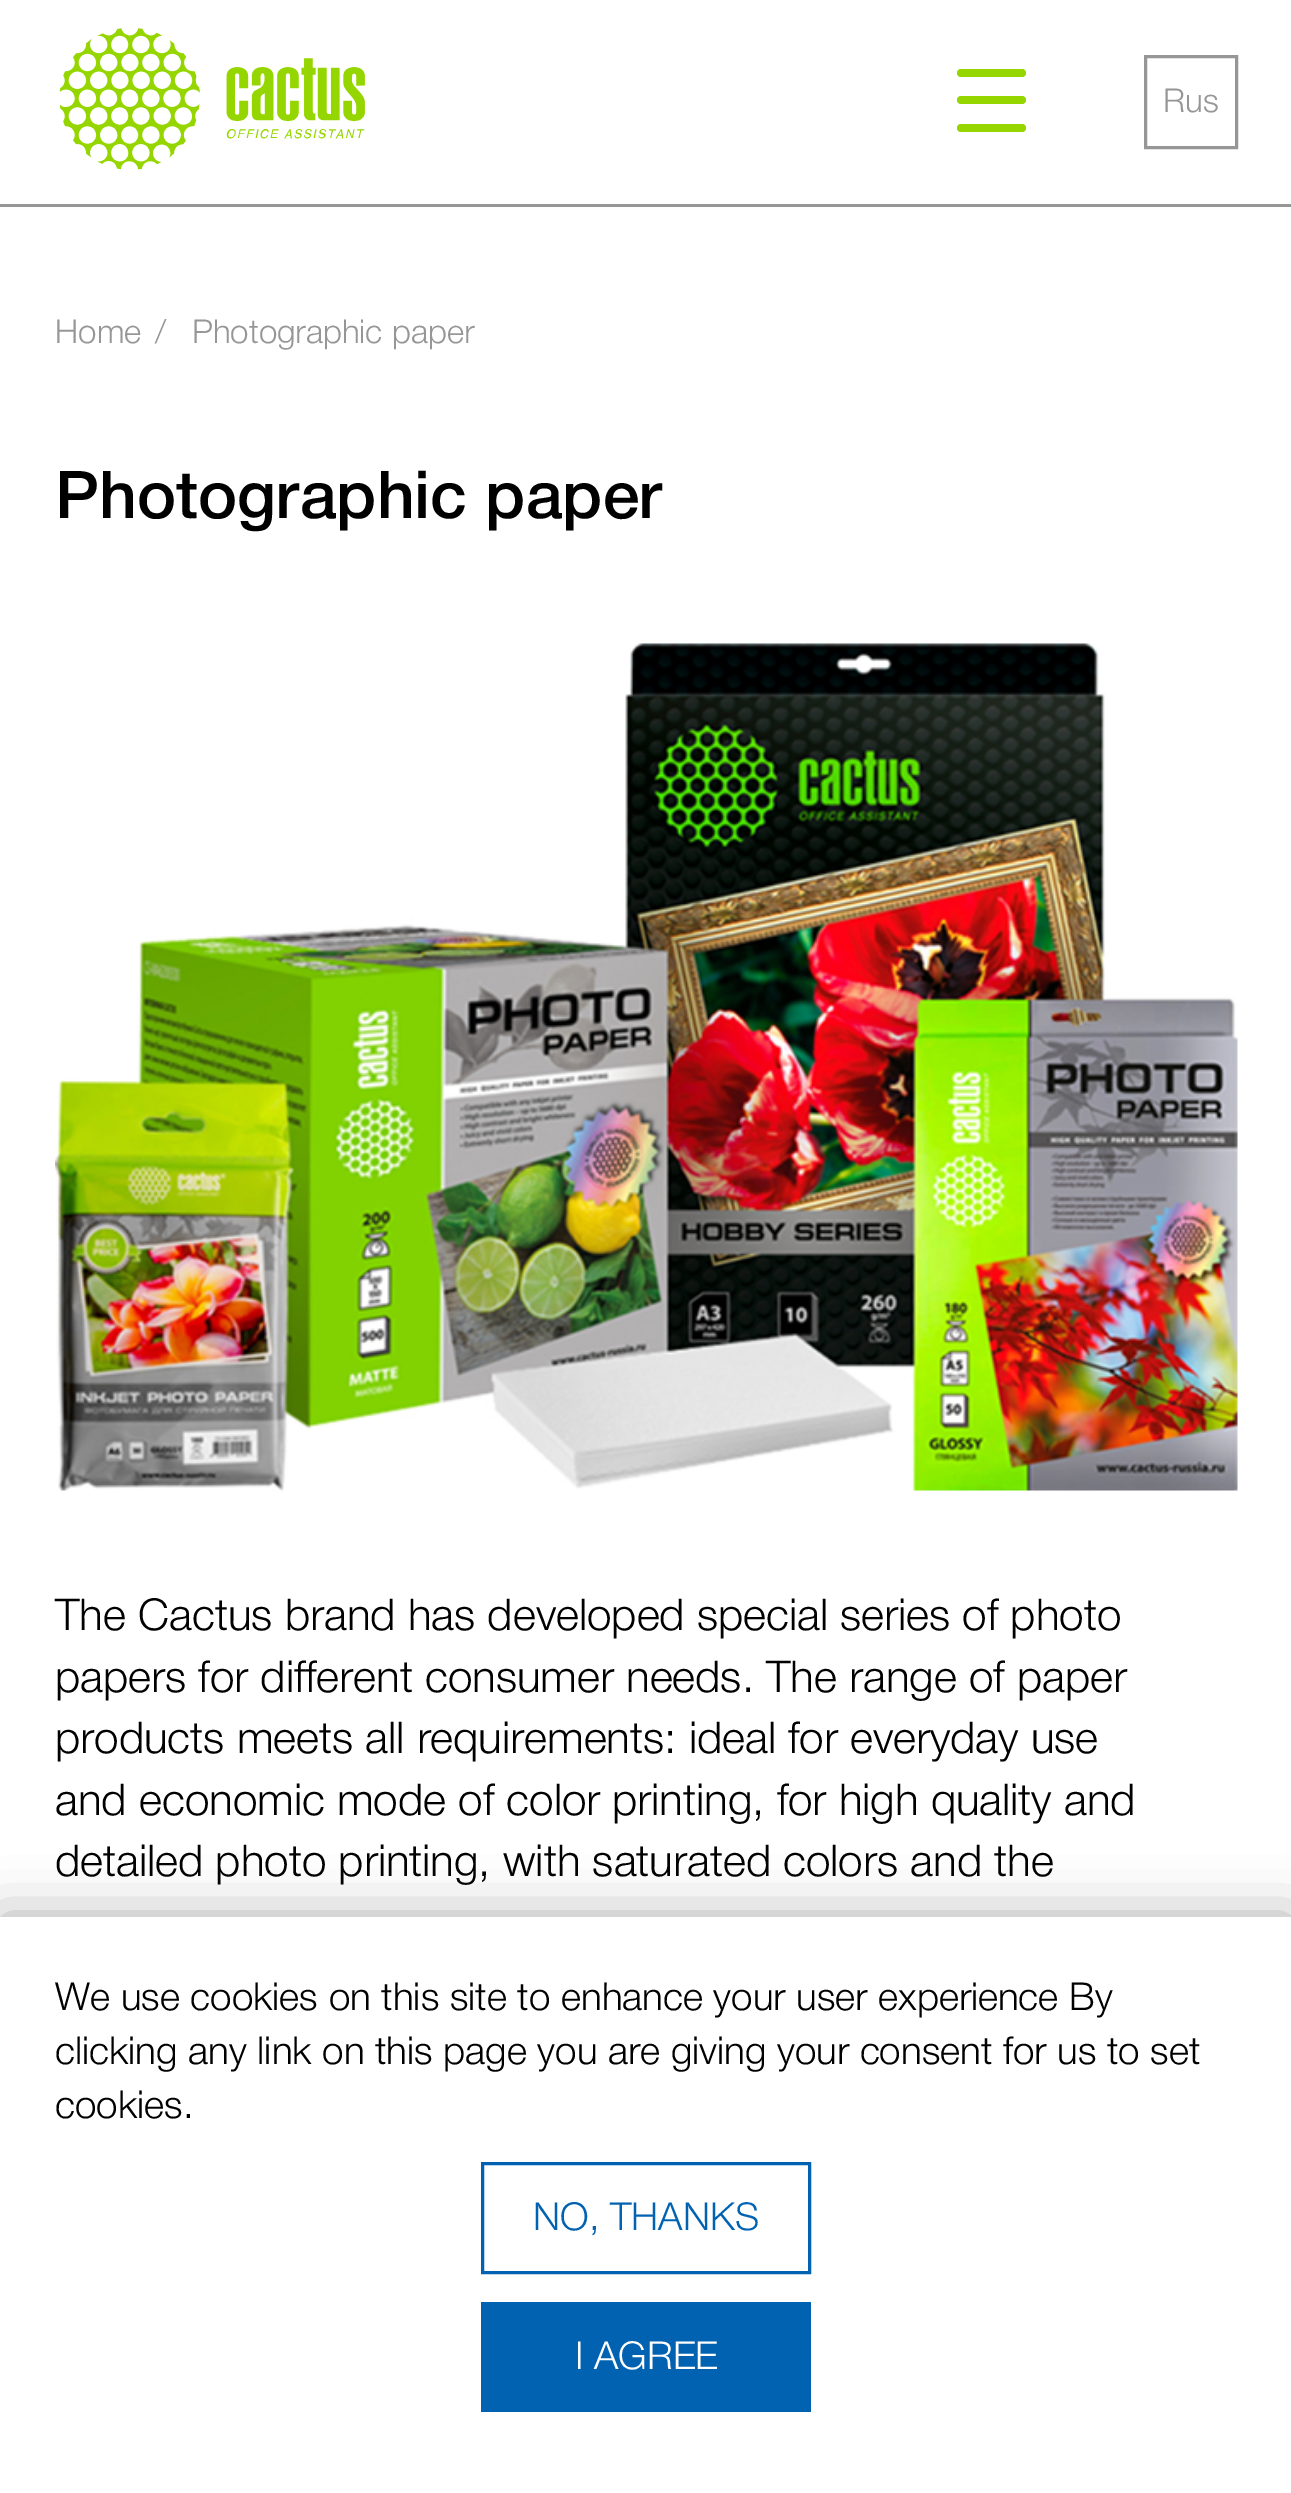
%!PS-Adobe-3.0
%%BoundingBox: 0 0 1291 2493
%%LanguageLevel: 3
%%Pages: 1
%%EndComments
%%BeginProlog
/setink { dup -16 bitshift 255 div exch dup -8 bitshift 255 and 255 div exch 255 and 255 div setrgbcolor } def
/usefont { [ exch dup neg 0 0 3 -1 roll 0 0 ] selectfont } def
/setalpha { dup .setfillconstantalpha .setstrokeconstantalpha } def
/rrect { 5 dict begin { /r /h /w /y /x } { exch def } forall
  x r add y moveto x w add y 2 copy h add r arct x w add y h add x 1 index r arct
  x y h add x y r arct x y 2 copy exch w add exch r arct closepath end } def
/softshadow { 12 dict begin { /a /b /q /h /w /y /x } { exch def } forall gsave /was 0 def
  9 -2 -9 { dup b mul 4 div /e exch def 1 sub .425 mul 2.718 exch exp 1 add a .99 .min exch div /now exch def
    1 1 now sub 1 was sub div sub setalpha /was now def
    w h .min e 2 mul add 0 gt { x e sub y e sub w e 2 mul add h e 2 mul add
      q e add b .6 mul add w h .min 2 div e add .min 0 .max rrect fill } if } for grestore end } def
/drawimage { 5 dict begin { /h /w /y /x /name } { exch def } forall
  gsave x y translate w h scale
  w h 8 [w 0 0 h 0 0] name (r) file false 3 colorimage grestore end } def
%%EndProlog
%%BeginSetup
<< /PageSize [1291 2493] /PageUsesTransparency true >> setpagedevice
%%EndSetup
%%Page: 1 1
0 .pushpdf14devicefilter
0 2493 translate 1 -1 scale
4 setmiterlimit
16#FFFFFF setink
0 0 1291 2493 rectfill
16#969696 setink
0 204 1291 3 rectfill
(img1.raw) 59 28 306 142 drawimage
16#95D600 setink
957 69 69 8 4 rrect fill
957 96 69 8 4 rrect fill
957 124 69 8 4 rrect fill
16#969696 setink
3 setlinewidth
1145.5 56.5 91 91 rectstroke
/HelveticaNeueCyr-Light 33 usefont
[
    [(Rus) 1163 112]
    [(Home) 55 343]
    [(/) 155 343]
    [(Photographic paper) 192 343]
] { aload pop moveto show } forall
/HelveticaNeueCyr-Medium 66 usefont
16#000000 setink
55 518 moveto (Photographic paper) show
(img2.raw) 55 643 1183 848 drawimage
/HelveticaNeueCyr-Light 44 usefont
[
    [(The Cactus brand has developed special series of photo) 55 1630]
    [(papers for different consumer needs. The range of paper) 55 1692]
    [(products meets all requirements: ideal for everyday use) 55 1753]
    [(and economic mode of color printing, for high quality and) 55 1815]
    [(detailed photo printing, with saturated colors and the) 55 1876]
] { aload pop moveto show } forall
16#323232 setink
0 1917 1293 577 0 27.5 0.41 softshadow
16#FFFFFF setink
0 1917 1291 576 rectfill
/HelveticaNeueCyr-Light 38.5 usefont
16#000000 setink
[
    [(We use cookies on this site to enhance your user experience By) 55 2010]
    [(clicking any link on this page you are giving your consent for us to set) 55 2064]
    [(cookies.) 55 2118]
] { aload pop moveto show } forall
16#0062B1 setink
482.5 2163.5 327 109 rectstroke
533 2230 moveto (NO, THANKS) show
481 2302 330 110 rectfill
16#FFFFFF setink
575 2369 moveto (I AGREE) show
.poppdf14devicefilter showpage
%%EOF
